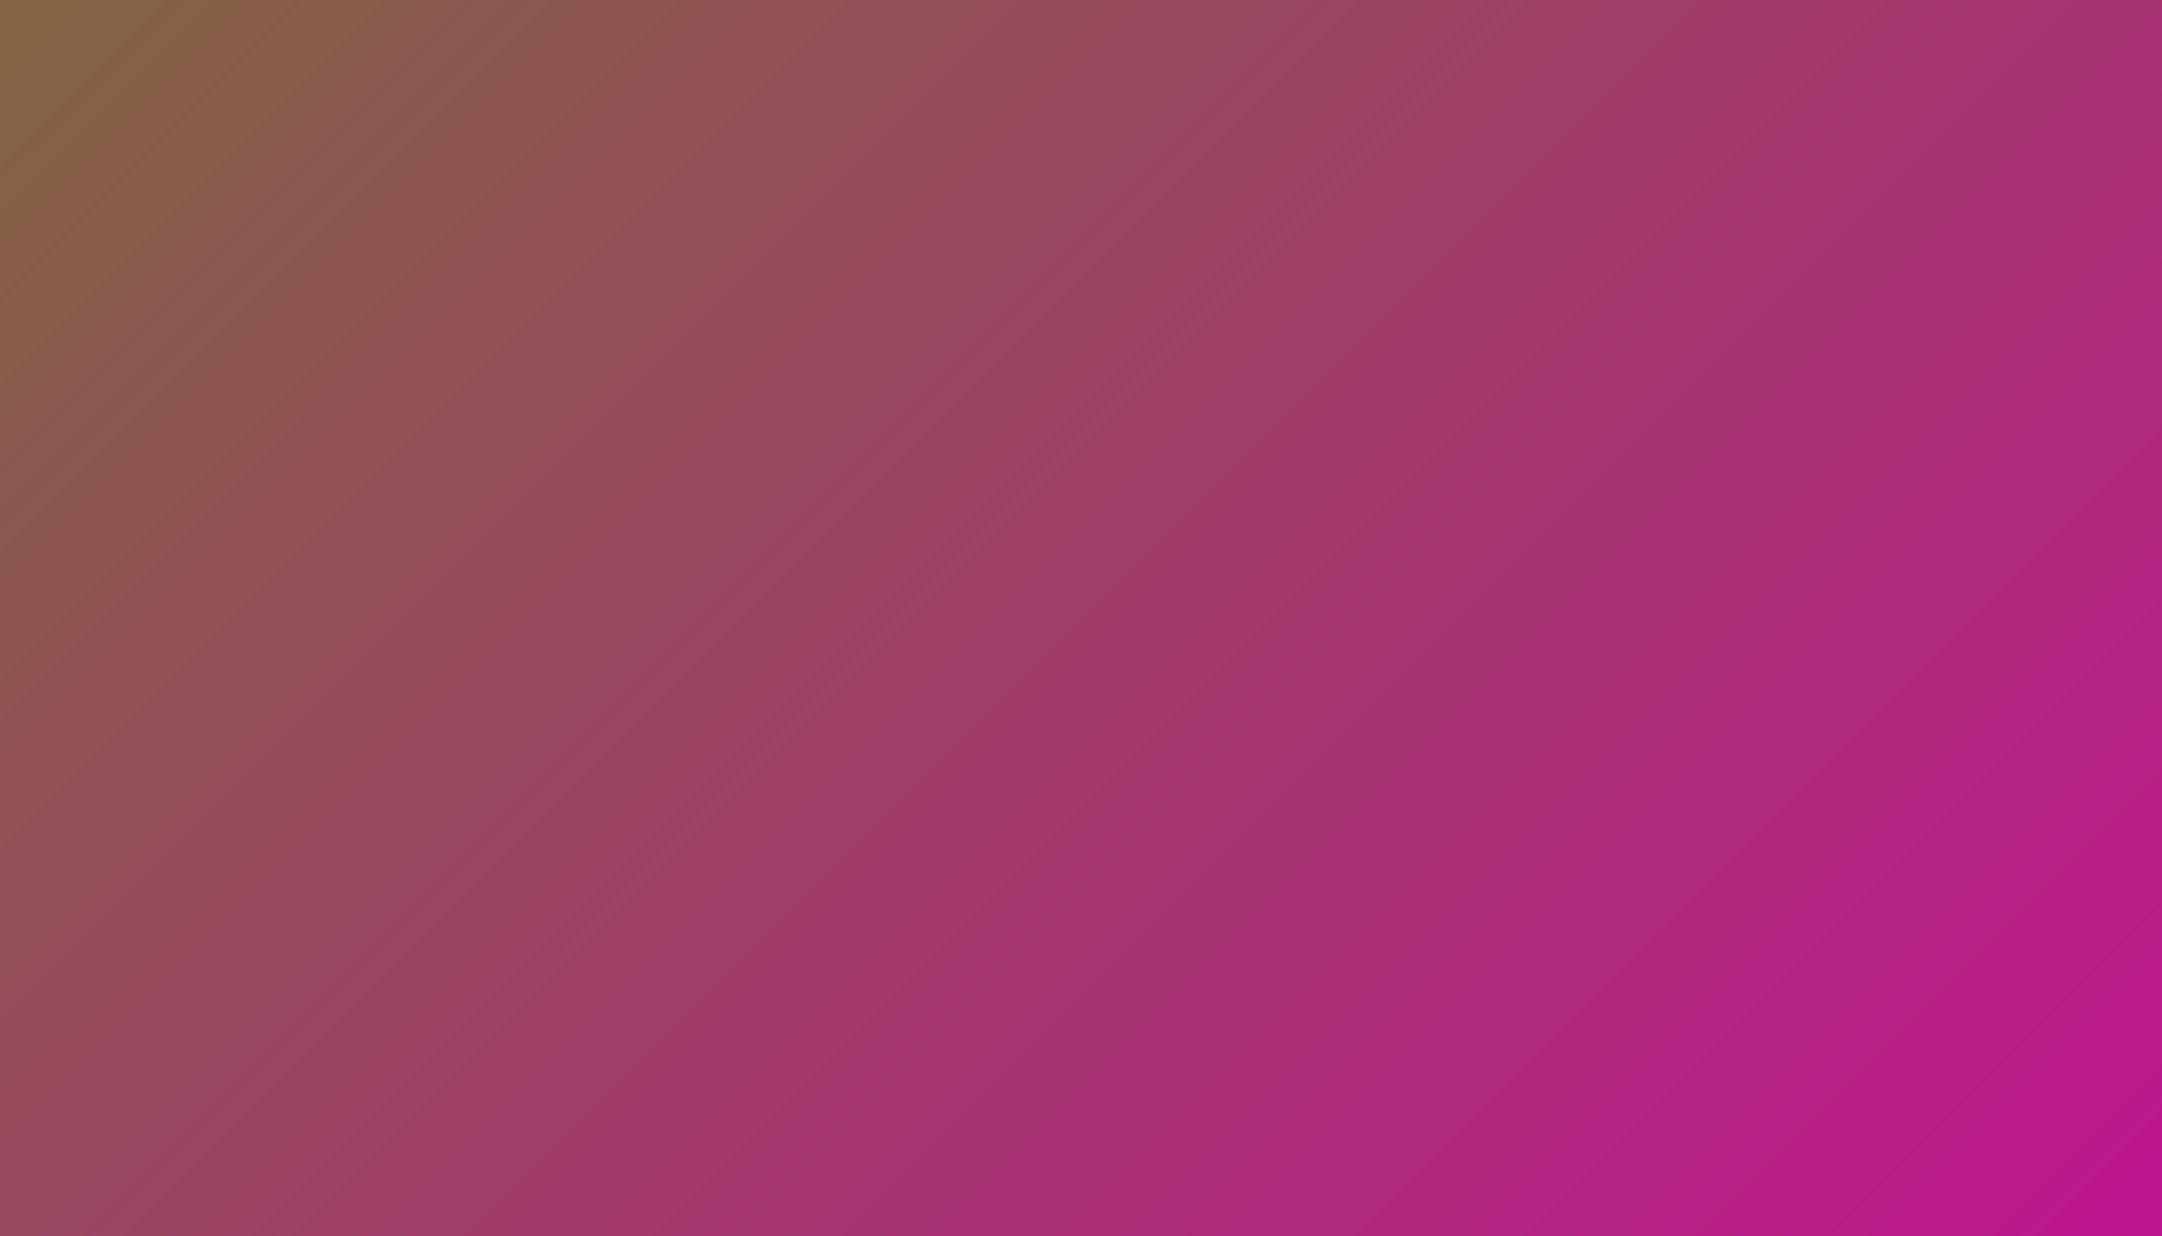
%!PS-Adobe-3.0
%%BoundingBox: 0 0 2162 1236
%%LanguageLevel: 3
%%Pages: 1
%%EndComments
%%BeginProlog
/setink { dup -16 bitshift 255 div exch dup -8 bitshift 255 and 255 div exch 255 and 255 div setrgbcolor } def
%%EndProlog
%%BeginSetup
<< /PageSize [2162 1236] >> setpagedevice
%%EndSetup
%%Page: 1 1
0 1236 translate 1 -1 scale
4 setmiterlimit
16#FFFFFF setink
0 0 2162 1236 rectfill
gsave 0 0 moveto 2162 0 lineto 2162 1236 lineto 0 1236 lineto closepath clip newpath
<< /ShadingType 2 /ColorSpace /DeviceRGB /Coords [232 -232 1931 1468] /Extend [true true] /Function << /FunctionType 2 /Domain [0 1] /C0 [0.514 0.396 0.263] /C1 [0.745 0.086 0.561] /N 1 >> >> shfill grestore
showpage
%%EOF
